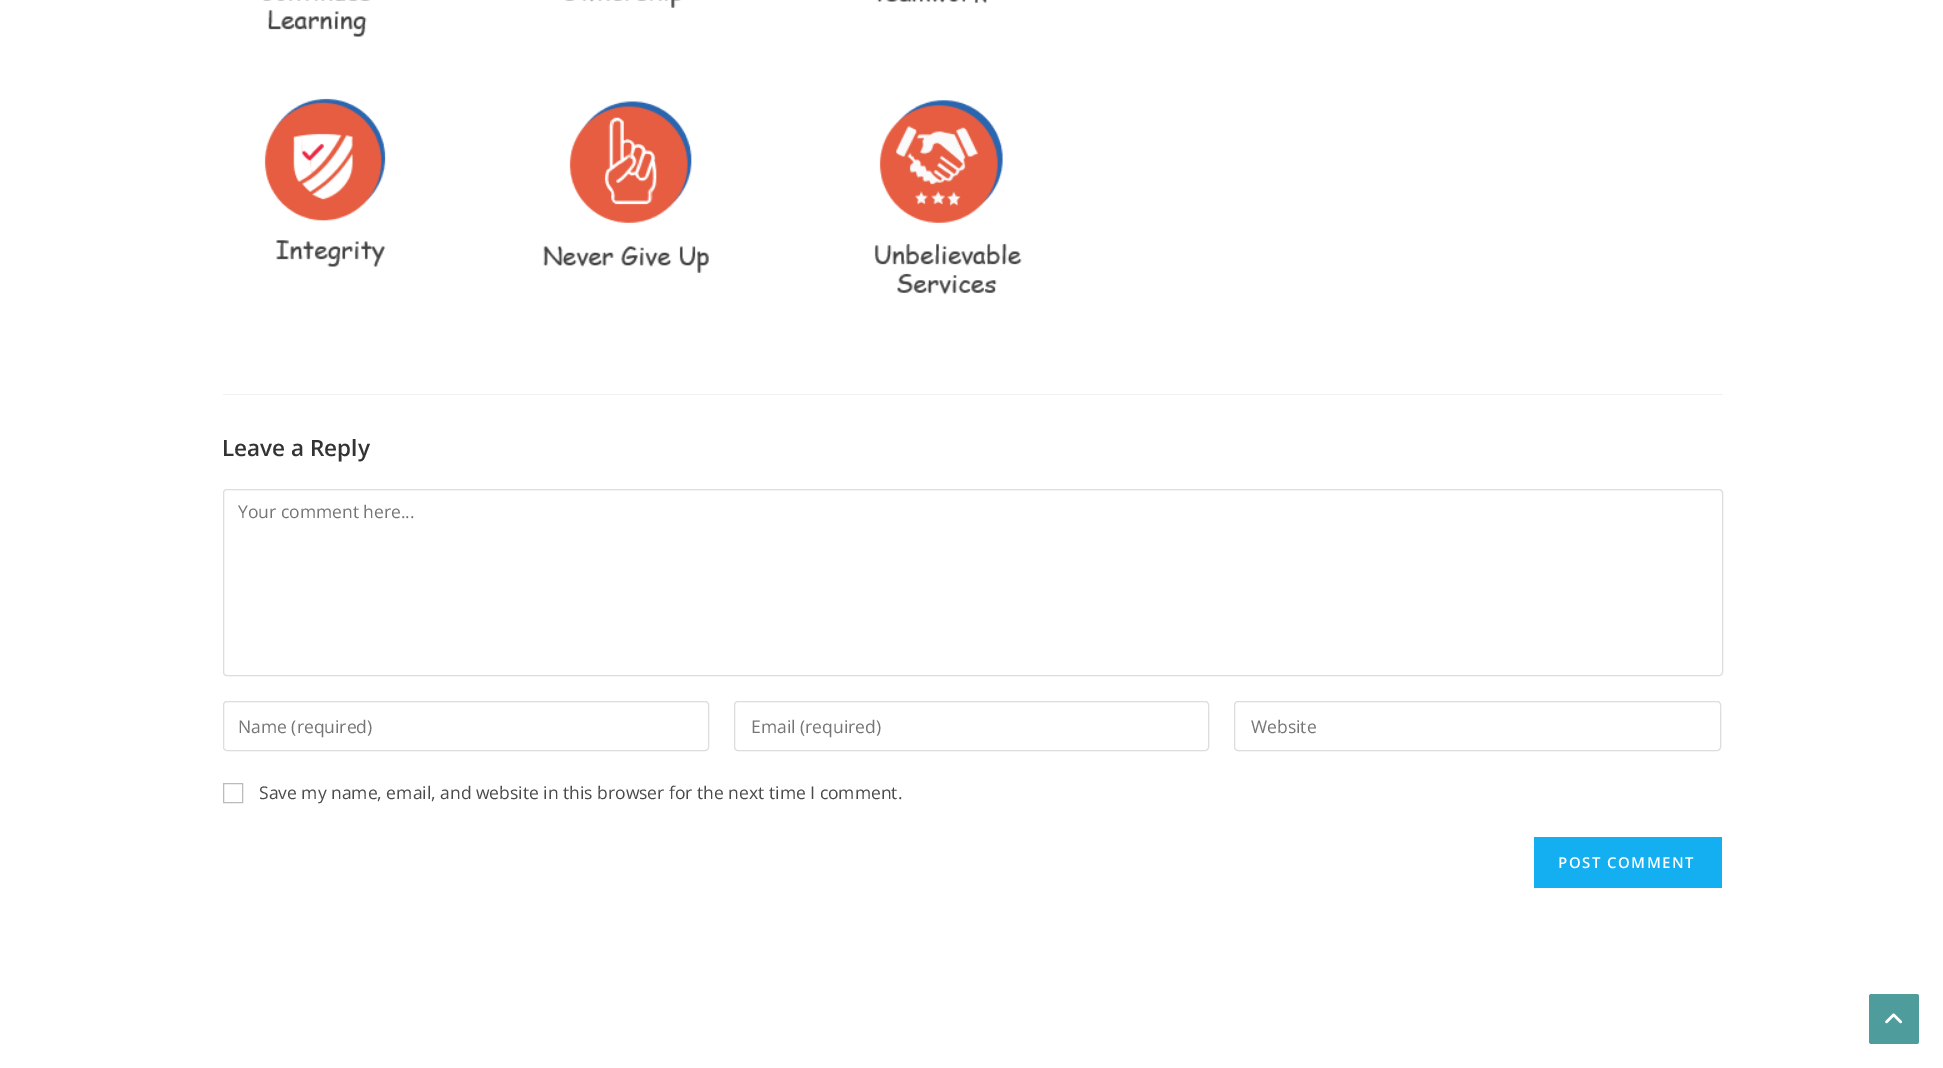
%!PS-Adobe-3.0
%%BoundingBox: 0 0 1943 1068
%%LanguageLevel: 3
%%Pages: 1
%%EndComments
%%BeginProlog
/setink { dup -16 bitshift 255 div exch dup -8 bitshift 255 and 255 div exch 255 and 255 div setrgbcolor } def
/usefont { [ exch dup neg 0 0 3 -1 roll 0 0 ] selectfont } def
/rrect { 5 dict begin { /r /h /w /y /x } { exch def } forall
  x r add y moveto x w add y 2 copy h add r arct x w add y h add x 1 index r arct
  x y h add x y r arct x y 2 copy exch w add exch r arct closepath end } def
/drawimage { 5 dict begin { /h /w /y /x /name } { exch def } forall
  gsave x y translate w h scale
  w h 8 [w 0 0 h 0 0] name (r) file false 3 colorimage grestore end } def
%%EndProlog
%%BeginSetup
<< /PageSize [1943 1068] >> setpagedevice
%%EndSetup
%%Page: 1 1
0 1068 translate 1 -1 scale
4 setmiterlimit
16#FFFFFF setink
0 0 1943 1068 rectfill
(img1.raw) 263 0 759 295 drawimage
16#F1F1F1 setink
223 394 1500 1 rectfill
/OpenSans-SemiBold 22.5 usefont
16#333333 setink
222 456 moveto (Leave a Reply) show
16#DDDDDD setink
223.5 489.5 1499 186 3.5 rrect stroke
/OpenSans-Regular 17.5 usefont
16#757575 setink
238 518 moveto (Your comment here...) show
16#DDDDDD setink
223.5 701.5 485 49 3.5 rrect stroke
16#757575 setink
238 733 moveto (Name \(required\)) show
16#DDDDDD setink
734.5 701.5 474 49 3.5 rrect stroke
16#757575 setink
751 733 moveto (Email \(required\)) show
16#DDDDDD setink
1234.5 701.5 486 49 3.5 rrect stroke
16#757575 setink
1251 733 moveto (Website) show
16#BBBBBB setink
223.5 783.5 19 19 rectstroke
16#4A4A4A setink
259 799 moveto (Save my name, email, and website in this browser for the next time I comment.) show
16#13AFF0 setink
1534 837 188 51 rectfill
/OpenSans-SemiBold 15 usefont
16#FFFFFF setink
1558 868 moveto 1.5 0 (POST COMMENT) ashow
16#4F9C9D setink
1869 994 50 50 2.5 rrect fill
(img2.raw) 1885 1013 17 11 drawimage
showpage
%%EOF
